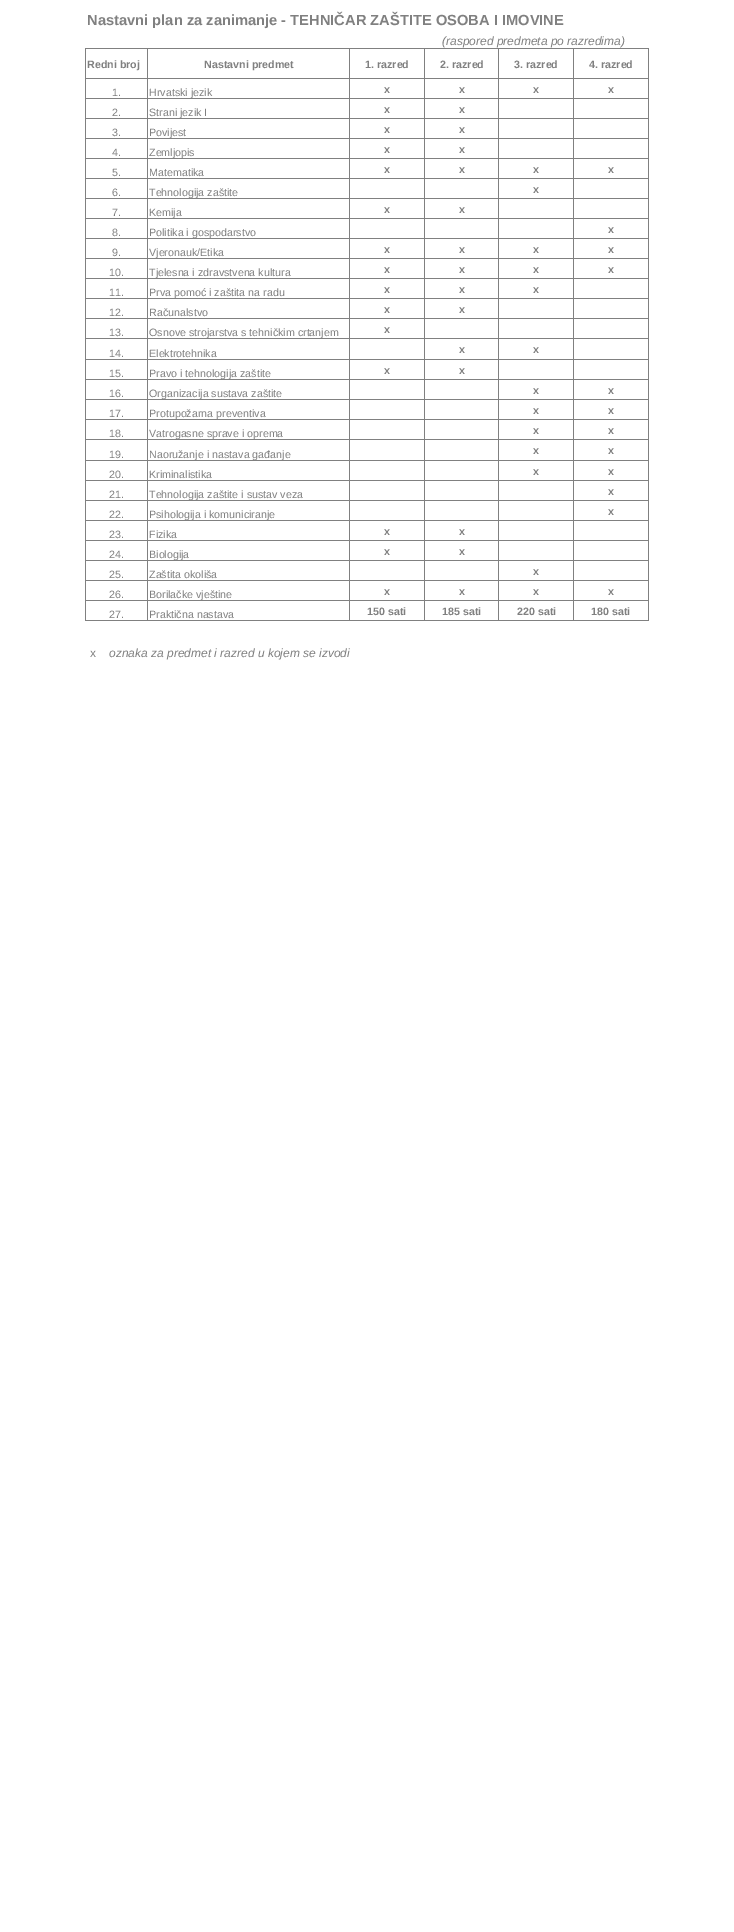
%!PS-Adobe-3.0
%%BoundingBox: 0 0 734 1932
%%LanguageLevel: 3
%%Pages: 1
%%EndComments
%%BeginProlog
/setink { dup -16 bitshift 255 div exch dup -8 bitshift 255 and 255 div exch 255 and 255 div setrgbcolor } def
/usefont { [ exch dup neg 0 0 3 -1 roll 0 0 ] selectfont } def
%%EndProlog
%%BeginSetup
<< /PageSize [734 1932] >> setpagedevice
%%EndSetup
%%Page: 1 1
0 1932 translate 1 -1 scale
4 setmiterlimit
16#FFFFFF setink
0 0 734 1932 rectfill
/LiberationSans-Bold 14.7 usefont
16#808080 setink
87 25 moveto (Nastavni plan za zanimanje - TEHNIČAR ZAŠTITE OSOBA I IMOVINE) show
/LiberationSans-Italic 12 usefont
442 45 moveto (\(raspored predmeta po razredima\)) show
[
    [85 48 564 1 16#808080]
    [648 278 1 343 16#808080]
    [648 78 1 201 16#808080]
    [648 48 1 31 16#808080]
    [573 620 76 1 16#808080]
    [573 600 1 21 16#808080]
    [573 600 76 1 16#808080]
    [573 580 1 21 16#808080]
    [573 580 76 1 16#808080]
    [573 560 1 21 16#808080]
    [573 560 76 1 16#808080]
    [573 540 1 21 16#808080]
    [573 540 76 1 16#808080]
    [573 520 1 21 16#808080]
    [573 520 76 1 16#808080]
    [573 500 1 21 16#808080]
    [573 500 76 1 16#808080]
    [573 480 1 21 16#808080]
    [573 480 76 1 16#808080]
    [573 460 1 21 16#808080]
    [573 460 76 1 16#808080]
    [573 439 1 22 16#808080]
    [573 439 76 1 16#808080]
    [573 419 1 21 16#808080]
    [573 419 76 1 16#808080]
    [573 399 1 21 16#808080]
    [573 399 76 1 16#808080]
    [573 379 1 21 16#808080]
    [573 379 76 1 16#808080]
    [573 359 1 21 16#808080]
    [573 359 76 1 16#808080]
    [573 338 1 22 16#808080]
    [573 338 76 1 16#808080]
    [573 318 1 21 16#808080]
    [573 318 76 1 16#808080]
    [573 298 1 21 16#808080]
    [573 298 76 1 16#808080]
    [573 278 1 21 16#808080]
    [573 278 76 1 16#808080]
    [573 258 1 21 16#808080]
    [573 258 76 1 16#808080]
    [573 238 1 21 16#808080]
    [573 238 76 1 16#808080]
    [573 218 1 21 16#808080]
    [573 218 76 1 16#808080]
    [573 198 1 21 16#808080]
    [573 198 76 1 16#808080]
    [573 178 1 21 16#808080]
    [573 178 76 1 16#808080]
    [573 158 1 21 16#808080]
    [573 158 76 1 16#808080]
    [573 138 1 21 16#808080]
    [573 138 76 1 16#808080]
    [573 118 1 21 16#808080]
    [573 118 76 1 16#808080]
    [573 98 1 21 16#808080]
    [573 98 76 1 16#808080]
    [573 78 1 21 16#808080]
    [573 78 76 1 16#808080]
    [573 48 1 31 16#808080]
    [498 620 76 1 16#808080]
    [498 600 1 21 16#808080]
    [498 600 76 1 16#808080]
    [498 580 1 21 16#808080]
    [498 580 76 1 16#808080]
    [498 560 1 21 16#808080]
    [498 560 76 1 16#808080]
    [498 540 1 21 16#808080]
    [498 540 76 1 16#808080]
    [498 520 1 21 16#808080]
    [498 520 76 1 16#808080]
    [498 500 1 21 16#808080]
    [498 500 76 1 16#808080]
    [498 480 1 21 16#808080]
    [498 480 76 1 16#808080]
    [498 460 1 21 16#808080]
    [498 460 76 1 16#808080]
    [498 439 1 22 16#808080]
    [498 439 76 1 16#808080]
    [498 419 1 21 16#808080]
    [498 419 76 1 16#808080]
    [498 399 1 21 16#808080]
    [498 399 76 1 16#808080]
    [498 379 1 21 16#808080]
    [498 379 76 1 16#808080]
    [498 359 1 21 16#808080]
    [498 359 76 1 16#808080]
    [498 338 1 22 16#808080]
    [498 338 76 1 16#808080]
    [498 318 1 21 16#808080]
    [498 318 76 1 16#808080]
    [498 298 1 21 16#808080]
    [498 298 76 1 16#808080]
    [498 278 1 21 16#808080]
    [498 278 76 1 16#808080]
    [498 258 1 21 16#808080]
    [498 258 76 1 16#808080]
    [498 238 1 21 16#808080]
    [498 238 76 1 16#808080]
    [498 218 1 21 16#808080]
    [498 218 76 1 16#808080]
    [498 198 1 21 16#808080]
    [498 198 76 1 16#808080]
    [498 178 1 21 16#808080]
    [498 178 76 1 16#808080]
    [498 158 1 21 16#808080]
    [498 158 76 1 16#808080]
    [498 138 1 21 16#808080]
    [498 138 76 1 16#808080]
    [498 118 1 21 16#808080]
    [498 118 76 1 16#808080]
    [498 98 1 21 16#808080]
    [498 98 76 1 16#808080]
    [498 78 1 21 16#808080]
    [498 78 76 1 16#808080]
    [498 48 1 31 16#808080]
    [424 620 75 1 16#808080]
    [424 600 1 21 16#808080]
    [424 600 75 1 16#808080]
    [424 580 1 21 16#808080]
    [424 580 75 1 16#808080]
    [424 560 1 21 16#808080]
    [424 560 75 1 16#808080]
    [424 540 1 21 16#808080]
    [424 540 75 1 16#808080]
    [424 520 1 21 16#808080]
    [424 520 75 1 16#808080]
    [424 500 1 21 16#808080]
    [424 500 75 1 16#808080]
    [424 480 1 21 16#808080]
    [424 480 75 1 16#808080]
    [424 460 1 21 16#808080]
    [424 460 75 1 16#808080]
    [424 439 1 22 16#808080]
    [424 439 75 1 16#808080]
    [424 419 1 21 16#808080]
    [424 419 75 1 16#808080]
    [424 399 1 21 16#808080]
    [424 399 75 1 16#808080]
    [424 379 1 21 16#808080]
    [424 379 75 1 16#808080]
    [424 359 1 21 16#808080]
    [424 359 75 1 16#808080]
    [424 338 1 22 16#808080]
    [424 338 75 1 16#808080]
    [424 318 1 21 16#808080]
    [424 318 75 1 16#808080]
    [424 298 1 21 16#808080]
    [424 298 75 1 16#808080]
    [424 278 1 21 16#808080]
    [424 278 75 1 16#808080]
    [424 258 1 21 16#808080]
    [424 258 75 1 16#808080]
    [424 238 1 21 16#808080]
    [424 238 75 1 16#808080]
    [424 218 1 21 16#808080]
    [424 218 75 1 16#808080]
    [424 198 1 21 16#808080]
    [424 198 75 1 16#808080]
    [424 178 1 21 16#808080]
    [424 178 75 1 16#808080]
    [424 158 1 21 16#808080]
    [424 158 75 1 16#808080]
    [424 138 1 21 16#808080]
    [424 138 75 1 16#808080]
    [424 118 1 21 16#808080]
    [424 118 75 1 16#808080]
    [424 98 1 21 16#808080]
    [424 98 75 1 16#808080]
    [424 78 1 21 16#808080]
    [424 78 75 1 16#808080]
    [424 48 1 31 16#808080]
    [349 620 76 1 16#808080]
    [349 600 1 21 16#808080]
    [349 600 76 1 16#808080]
    [349 580 1 21 16#808080]
    [349 580 76 1 16#808080]
    [349 560 1 21 16#808080]
    [349 560 76 1 16#808080]
    [349 540 1 21 16#808080]
    [349 540 76 1 16#808080]
    [349 520 1 21 16#808080]
    [349 520 76 1 16#808080]
    [349 500 1 21 16#808080]
    [349 500 76 1 16#808080]
    [349 480 1 21 16#808080]
    [349 480 76 1 16#808080]
    [349 460 1 21 16#808080]
    [349 460 76 1 16#808080]
    [349 439 1 22 16#808080]
    [349 439 76 1 16#808080]
    [349 419 1 21 16#808080]
    [349 419 76 1 16#808080]
    [349 399 1 21 16#808080]
    [349 399 76 1 16#808080]
    [349 379 1 21 16#808080]
    [349 379 76 1 16#808080]
    [349 359 1 21 16#808080]
    [349 359 76 1 16#808080]
    [349 338 1 22 16#808080]
    [349 338 76 1 16#808080]
    [349 318 1 21 16#808080]
    [349 318 76 1 16#808080]
    [349 298 1 21 16#808080]
    [349 298 76 1 16#808080]
    [349 278 1 21 16#808080]
    [349 278 76 1 16#808080]
    [349 258 1 21 16#808080]
    [349 258 76 1 16#808080]
    [349 238 1 21 16#808080]
    [349 238 76 1 16#808080]
    [349 218 1 21 16#808080]
    [349 218 76 1 16#808080]
    [349 198 1 21 16#808080]
    [349 198 76 1 16#808080]
    [349 178 1 21 16#808080]
    [349 178 76 1 16#808080]
    [349 158 1 21 16#808080]
    [349 158 76 1 16#808080]
    [349 138 1 21 16#808080]
    [349 138 76 1 16#808080]
    [349 118 1 21 16#808080]
    [349 118 76 1 16#808080]
    [349 98 1 21 16#808080]
    [349 98 76 1 16#808080]
    [349 78 1 21 16#808080]
    [349 78 76 1 16#808080]
    [349 48 1 31 16#808080]
    [147 620 203 1 16#808080]
    [147 600 1 21 16#808080]
    [147 600 203 1 16#808080]
    [147 580 1 21 16#808080]
    [147 580 203 1 16#808080]
    [147 560 1 21 16#808080]
    [147 560 203 1 16#808080]
    [147 540 1 21 16#808080]
    [147 540 203 1 16#808080]
    [147 520 1 21 16#808080]
    [147 520 203 1 16#808080]
    [147 500 1 21 16#808080]
    [147 500 203 1 16#808080]
    [147 480 1 21 16#808080]
    [147 480 203 1 16#808080]
    [147 460 1 21 16#808080]
    [147 460 203 1 16#808080]
    [147 439 1 22 16#808080]
    [147 439 203 1 16#808080]
    [147 419 1 21 16#808080]
    [147 419 203 1 16#808080]
    [147 399 1 21 16#808080]
    [147 399 203 1 16#808080]
    [147 379 1 21 16#808080]
    [147 379 203 1 16#808080]
    [147 359 1 21 16#808080]
    [147 359 203 1 16#808080]
    [147 338 1 22 16#808080]
    [147 338 203 1 16#808080]
    [147 318 1 21 16#808080]
    [147 318 203 1 16#808080]
    [147 298 1 21 16#808080]
    [147 298 203 1 16#808080]
    [147 278 1 21 16#808080]
    [147 278 203 1 16#808080]
    [147 258 1 21 16#808080]
    [147 258 203 1 16#808080]
    [147 238 1 21 16#808080]
    [147 238 203 1 16#808080]
    [147 218 1 21 16#808080]
    [147 218 203 1 16#808080]
    [147 198 1 21 16#808080]
    [147 198 203 1 16#808080]
    [147 178 1 21 16#808080]
    [147 178 203 1 16#808080]
    [147 158 1 21 16#808080]
    [147 158 203 1 16#808080]
    [147 138 1 21 16#808080]
    [147 138 203 1 16#808080]
    [147 118 1 21 16#808080]
    [147 118 203 1 16#808080]
    [147 98 1 21 16#808080]
    [147 98 203 1 16#808080]
    [147 78 1 21 16#808080]
    [147 78 203 1 16#808080]
    [147 48 1 31 16#808080]
    [85 620 63 1 16#808080]
    [85 600 1 21 16#808080]
    [85 600 63 1 16#808080]
    [85 580 1 21 16#808080]
    [85 580 63 1 16#808080]
    [85 560 1 21 16#808080]
    [85 560 63 1 16#808080]
    [85 540 1 21 16#808080]
    [85 540 63 1 16#808080]
    [85 520 1 21 16#808080]
    [85 520 63 1 16#808080]
    [85 500 1 21 16#808080]
    [85 500 63 1 16#808080]
    [85 480 1 21 16#808080]
    [85 480 63 1 16#808080]
    [85 460 1 21 16#808080]
    [85 460 63 1 16#808080]
    [85 439 1 22 16#808080]
    [85 439 63 1 16#808080]
    [85 419 1 21 16#808080]
    [85 419 63 1 16#808080]
    [85 399 1 21 16#808080]
    [85 399 63 1 16#808080]
    [85 379 1 21 16#808080]
    [85 379 63 1 16#808080]
    [85 359 1 21 16#808080]
    [85 359 63 1 16#808080]
    [85 338 1 22 16#808080]
    [85 338 63 1 16#808080]
    [85 318 1 21 16#808080]
    [85 318 63 1 16#808080]
    [85 298 1 21 16#808080]
    [85 298 63 1 16#808080]
    [85 278 1 21 16#808080]
    [85 278 63 1 16#808080]
    [85 258 1 21 16#808080]
    [85 258 63 1 16#808080]
    [85 238 1 21 16#808080]
    [85 238 63 1 16#808080]
    [85 218 1 21 16#808080]
    [85 218 63 1 16#808080]
    [85 198 1 21 16#808080]
    [85 198 63 1 16#808080]
    [85 178 1 21 16#808080]
    [85 178 63 1 16#808080]
    [85 158 1 21 16#808080]
    [85 158 63 1 16#808080]
    [85 138 1 21 16#808080]
    [85 138 63 1 16#808080]
    [85 118 1 21 16#808080]
    [85 118 63 1 16#808080]
    [85 98 1 21 16#808080]
    [85 98 63 1 16#808080]
    [85 78 1 21 16#808080]
    [85 78 63 1 16#808080]
    [85 48 1 31 16#808080]
] { aload pop setink rectfill } forall
/LiberationSans-Bold 10.7 usefont
[
    [(Redni broj) 87 68]
    [(Nastavni predmet) 204 68]
    [(1. razred) 365 68]
    [(2. razred) 440 68]
    [(3. razred) 514 68]
    [(4. razred) 589 68]
] { aload pop moveto show } forall
/LiberationSans-Regular 10.7 usefont
112 96 moveto (1.) show
149 96 moveto (Hrvatski jezik) show
/LiberationSans-Bold 10.7 usefont
[
    [(x) 384 93]
    [(x) 459 93]
    [(x) 533 93]
    [(x) 608 93]
] { aload pop moveto show } forall
/LiberationSans-Regular 10.7 usefont
112 116 moveto (2.) show
149 116 moveto (Strani jezik I) show
/LiberationSans-Bold 10.7 usefont
384 113 moveto (x) show
459 113 moveto (x) show
/LiberationSans-Regular 10.7 usefont
112 136 moveto (3.) show
149 136 moveto (Povijest) show
/LiberationSans-Bold 10.7 usefont
384 133 moveto (x) show
459 133 moveto (x) show
/LiberationSans-Regular 10.7 usefont
112 156 moveto (4.) show
149 156 moveto (Zemljopis) show
/LiberationSans-Bold 10.7 usefont
384 153 moveto (x) show
459 153 moveto (x) show
/LiberationSans-Regular 10.7 usefont
112 176 moveto (5.) show
149 176 moveto (Matematika) show
/LiberationSans-Bold 10.7 usefont
[
    [(x) 384 173]
    [(x) 459 173]
    [(x) 533 173]
    [(x) 608 173]
] { aload pop moveto show } forall
/LiberationSans-Regular 10.7 usefont
112 196 moveto (6.) show
149 196 moveto (Tehnologija zaštite) show
/LiberationSans-Bold 10.7 usefont
533 193 moveto (x) show
/LiberationSans-Regular 10.7 usefont
112 216 moveto (7.) show
149 216 moveto (Kemija) show
/LiberationSans-Bold 10.7 usefont
384 213 moveto (x) show
459 213 moveto (x) show
/LiberationSans-Regular 10.7 usefont
112 236 moveto (8.) show
149 236 moveto (Politika i gospodarstvo) show
/LiberationSans-Bold 10.7 usefont
608 233 moveto (x) show
/LiberationSans-Regular 10.7 usefont
112 256 moveto (9.) show
149 256 moveto (Vjeronauk/Etika) show
/LiberationSans-Bold 10.7 usefont
[
    [(x) 384 253]
    [(x) 459 253]
    [(x) 533 253]
    [(x) 608 253]
] { aload pop moveto show } forall
/LiberationSans-Regular 10.7 usefont
109 276 moveto (10.) show
149 276 moveto (Tjelesna i zdravstvena kultura) show
/LiberationSans-Bold 10.7 usefont
[
    [(x) 384 273]
    [(x) 459 273]
    [(x) 533 273]
    [(x) 608 273]
] { aload pop moveto show } forall
/LiberationSans-Regular 10.7 usefont
109 296 moveto (11.) show
149 296 moveto (Prva pomoć i zaštita na radu) show
/LiberationSans-Bold 10.7 usefont
[
    [(x) 384 293]
    [(x) 459 293]
    [(x) 533 293]
] { aload pop moveto show } forall
/LiberationSans-Regular 10.7 usefont
109 316 moveto (12.) show
149 316 moveto (Računalstvo) show
/LiberationSans-Bold 10.7 usefont
384 313 moveto (x) show
459 313 moveto (x) show
/LiberationSans-Regular 10.7 usefont
109 336 moveto (13.) show
149 336 moveto (Osnove strojarstva s tehničkim crtanjem) show
/LiberationSans-Bold 10.7 usefont
384 333 moveto (x) show
/LiberationSans-Regular 10.7 usefont
109 357 moveto (14.) show
149 357 moveto (Elektrotehnika) show
/LiberationSans-Bold 10.7 usefont
459 353 moveto (x) show
533 353 moveto (x) show
/LiberationSans-Regular 10.7 usefont
109 377 moveto (15.) show
149 377 moveto (Pravo i tehnologija zaštite) show
/LiberationSans-Bold 10.7 usefont
384 374 moveto (x) show
459 374 moveto (x) show
/LiberationSans-Regular 10.7 usefont
109 397 moveto (16.) show
149 397 moveto (Organizacija sustava zaštite) show
/LiberationSans-Bold 10.7 usefont
533 394 moveto (x) show
608 394 moveto (x) show
/LiberationSans-Regular 10.7 usefont
109 417 moveto (17.) show
149 417 moveto (Protupožarna preventiva) show
/LiberationSans-Bold 10.7 usefont
533 414 moveto (x) show
608 414 moveto (x) show
/LiberationSans-Regular 10.7 usefont
109 437 moveto (18.) show
149 437 moveto (Vatrogasne sprave i oprema) show
/LiberationSans-Bold 10.7 usefont
533 434 moveto (x) show
608 434 moveto (x) show
/LiberationSans-Regular 10.7 usefont
109 458 moveto (19.) show
149 458 moveto (Naoružanje i nastava gađanje) show
/LiberationSans-Bold 10.7 usefont
533 454 moveto (x) show
608 454 moveto (x) show
/LiberationSans-Regular 10.7 usefont
109 478 moveto (20.) show
149 478 moveto (Kriminalistika) show
/LiberationSans-Bold 10.7 usefont
533 475 moveto (x) show
608 475 moveto (x) show
/LiberationSans-Regular 10.7 usefont
109 498 moveto (21.) show
149 498 moveto (Tehnologija zaštite i sustav veza) show
/LiberationSans-Bold 10.7 usefont
608 495 moveto (x) show
/LiberationSans-Regular 10.7 usefont
109 518 moveto (22.) show
149 518 moveto (Psihologija i komuniciranje) show
/LiberationSans-Bold 10.7 usefont
608 515 moveto (x) show
/LiberationSans-Regular 10.7 usefont
109 538 moveto (23.) show
149 538 moveto (Fizika) show
/LiberationSans-Bold 10.7 usefont
384 535 moveto (x) show
459 535 moveto (x) show
/LiberationSans-Regular 10.7 usefont
109 558 moveto (24.) show
149 558 moveto (Biologija) show
/LiberationSans-Bold 10.7 usefont
384 555 moveto (x) show
459 555 moveto (x) show
/LiberationSans-Regular 10.7 usefont
109 578 moveto (25.) show
149 578 moveto (Zaštita okoliša) show
/LiberationSans-Bold 10.7 usefont
533 575 moveto (x) show
/LiberationSans-Regular 10.7 usefont
109 598 moveto (26.) show
149 598 moveto (Borilačke vještine) show
/LiberationSans-Bold 10.7 usefont
[
    [(x) 384 595]
    [(x) 459 595]
    [(x) 533 595]
    [(x) 608 595]
] { aload pop moveto show } forall
/LiberationSans-Regular 10.7 usefont
109 618 moveto (27.) show
149 618 moveto (Praktična nastava) show
/LiberationSans-Bold 10.7 usefont
[
    [(150 sati) 367 615]
    [(185 sati) 442 615]
    [(220 sati) 517 615]
    [(180 sati) 591 615]
] { aload pop moveto show } forall
/LiberationSans-Regular 12 usefont
90 657 moveto (x) show
/LiberationSans-Italic 12 usefont
109 657 moveto (oznaka za predmet i razred u kojem se izvodi) show
showpage
%%EOF
